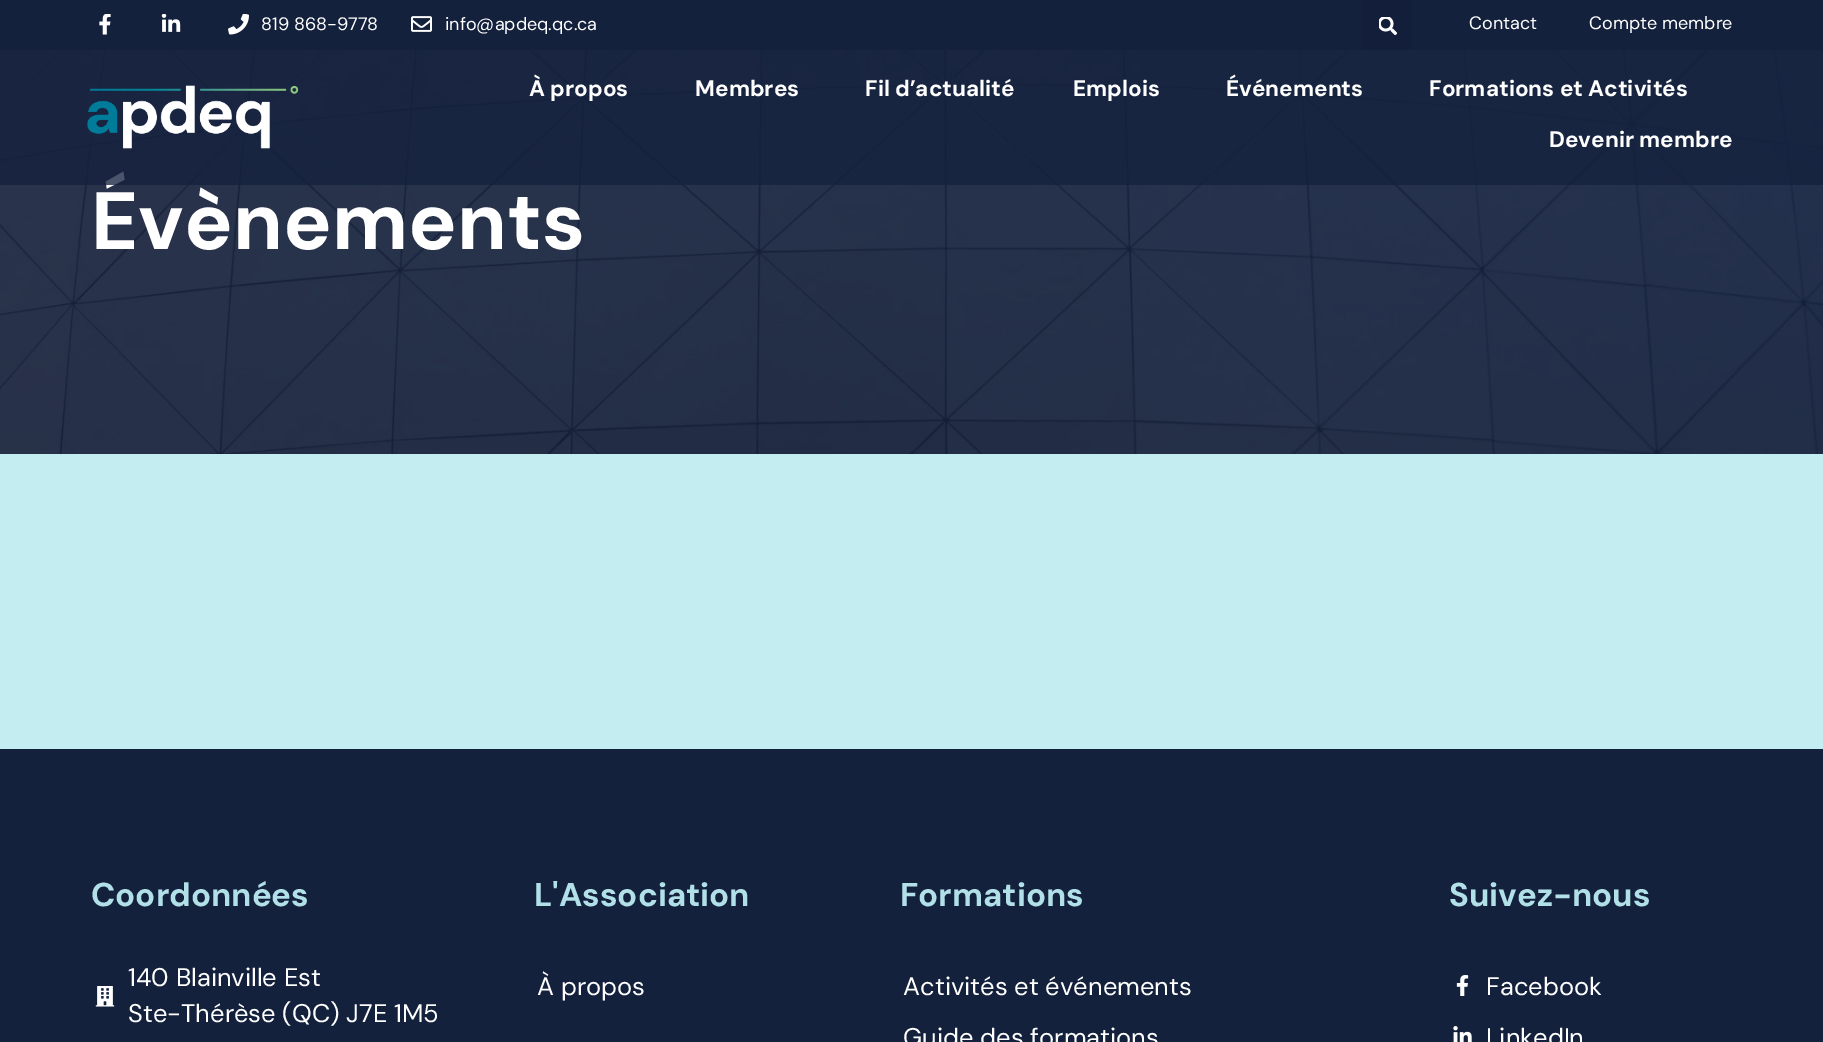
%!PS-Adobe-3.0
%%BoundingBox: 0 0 1823 1042
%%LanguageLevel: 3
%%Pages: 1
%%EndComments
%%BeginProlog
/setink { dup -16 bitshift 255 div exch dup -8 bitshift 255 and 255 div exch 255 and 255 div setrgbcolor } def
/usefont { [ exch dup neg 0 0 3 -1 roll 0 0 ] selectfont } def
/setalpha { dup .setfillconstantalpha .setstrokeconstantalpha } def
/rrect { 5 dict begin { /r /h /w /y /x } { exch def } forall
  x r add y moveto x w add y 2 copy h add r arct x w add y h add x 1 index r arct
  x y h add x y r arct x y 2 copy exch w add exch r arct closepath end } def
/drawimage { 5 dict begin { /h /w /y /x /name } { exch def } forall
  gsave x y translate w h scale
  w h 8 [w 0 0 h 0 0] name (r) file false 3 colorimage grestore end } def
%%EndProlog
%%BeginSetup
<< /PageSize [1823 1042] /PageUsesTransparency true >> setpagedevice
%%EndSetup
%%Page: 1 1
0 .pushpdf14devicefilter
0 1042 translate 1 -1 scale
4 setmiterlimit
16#C4EDF2 setink
0 0 1823 1042 rectfill
16#14213D setink
0 0 1823 50 rectfill
(img1.raw) 99 14 12 21 drawimage
(img2.raw) 161 14 20 18 drawimage
(img3.raw) 228 14 21 21 drawimage
/DMSans-Regular 18 usefont
16#FFFFFF setink
261 30 moveto (819 868-9778) show
(img4.raw) 411 16 21 16 drawimage
445 30 moveto (info@apdeq.qc.ca) show
16#131F3A setink
1362 0 50 50 5 rrect fill
(img5.raw) 1379 17 18 18 drawimage
16#FFFFFF setink
1469 29 moveto (Contact) show
1589 29 moveto (Compte membre) show
(img7.raw) 0 50 1823 404 drawimage
/DMSans-Bold 81 usefont
91 249 moveto (Évènements) show
0.51 setalpha
16#14213D setink
0 50 1823 135 rectfill
0.53 setalpha
0 50 1823 135 rectfill
1 setalpha
(img6.raw) 87 85 212 64 drawimage
/DMSans-Bold 22.5 usefont
16#FFFFFF setink
[
    [(À propos) 529 96]
    [(Membres) 695 96]
    [(Fil d’actualité) 865 96]
    [(Emplois) 1073 96]
    [(Événements) 1226 96]
    [(Formations et Activités) 1429 96]
    [(Devenir membre) 1549 147]
] { aload pop moveto show } forall
16#14213D setink
0 749 1823 293 rectfill
/DMSans-Bold 33 usefont
16#B1E0E8 setink
91 906 moveto (Coordonnées) show
(img8.raw) 95 986 20 21 drawimage
/DMSans-Regular 25.5 usefont
16#FFFFFF setink
128 986 moveto (140 Blainville Est) show
128 1022 moveto (Ste-Thérèse \(QC\) J7E 1M5) show
/DMSans-Bold 33 usefont
16#B1E0E8 setink
534 906 moveto (L'Association) show
/DMSans-Regular 25.5 usefont
16#FFFFFF setink
537 995 moveto (À propos) show
/DMSans-Bold 33 usefont
16#B1E0E8 setink
900 906 moveto (Formations) show
/DMSans-Regular 25.5 usefont
16#FFFFFF setink
903 995 moveto (Activités et événements) show
903 1046 moveto (Guide des formations) show
/DMSans-Bold 33 usefont
16#B1E0E8 setink
1449 906 moveto (Suivez-nous) show
(img9.raw) 1456 975 13 21 drawimage
/DMSans-Regular 25.5 usefont
16#FFFFFF setink
1486 995 moveto (Facebook) show
(img10.raw) 1453 1026 19 16 drawimage
1486 1046 moveto (LinkedIn) show
.poppdf14devicefilter showpage
%%EOF
